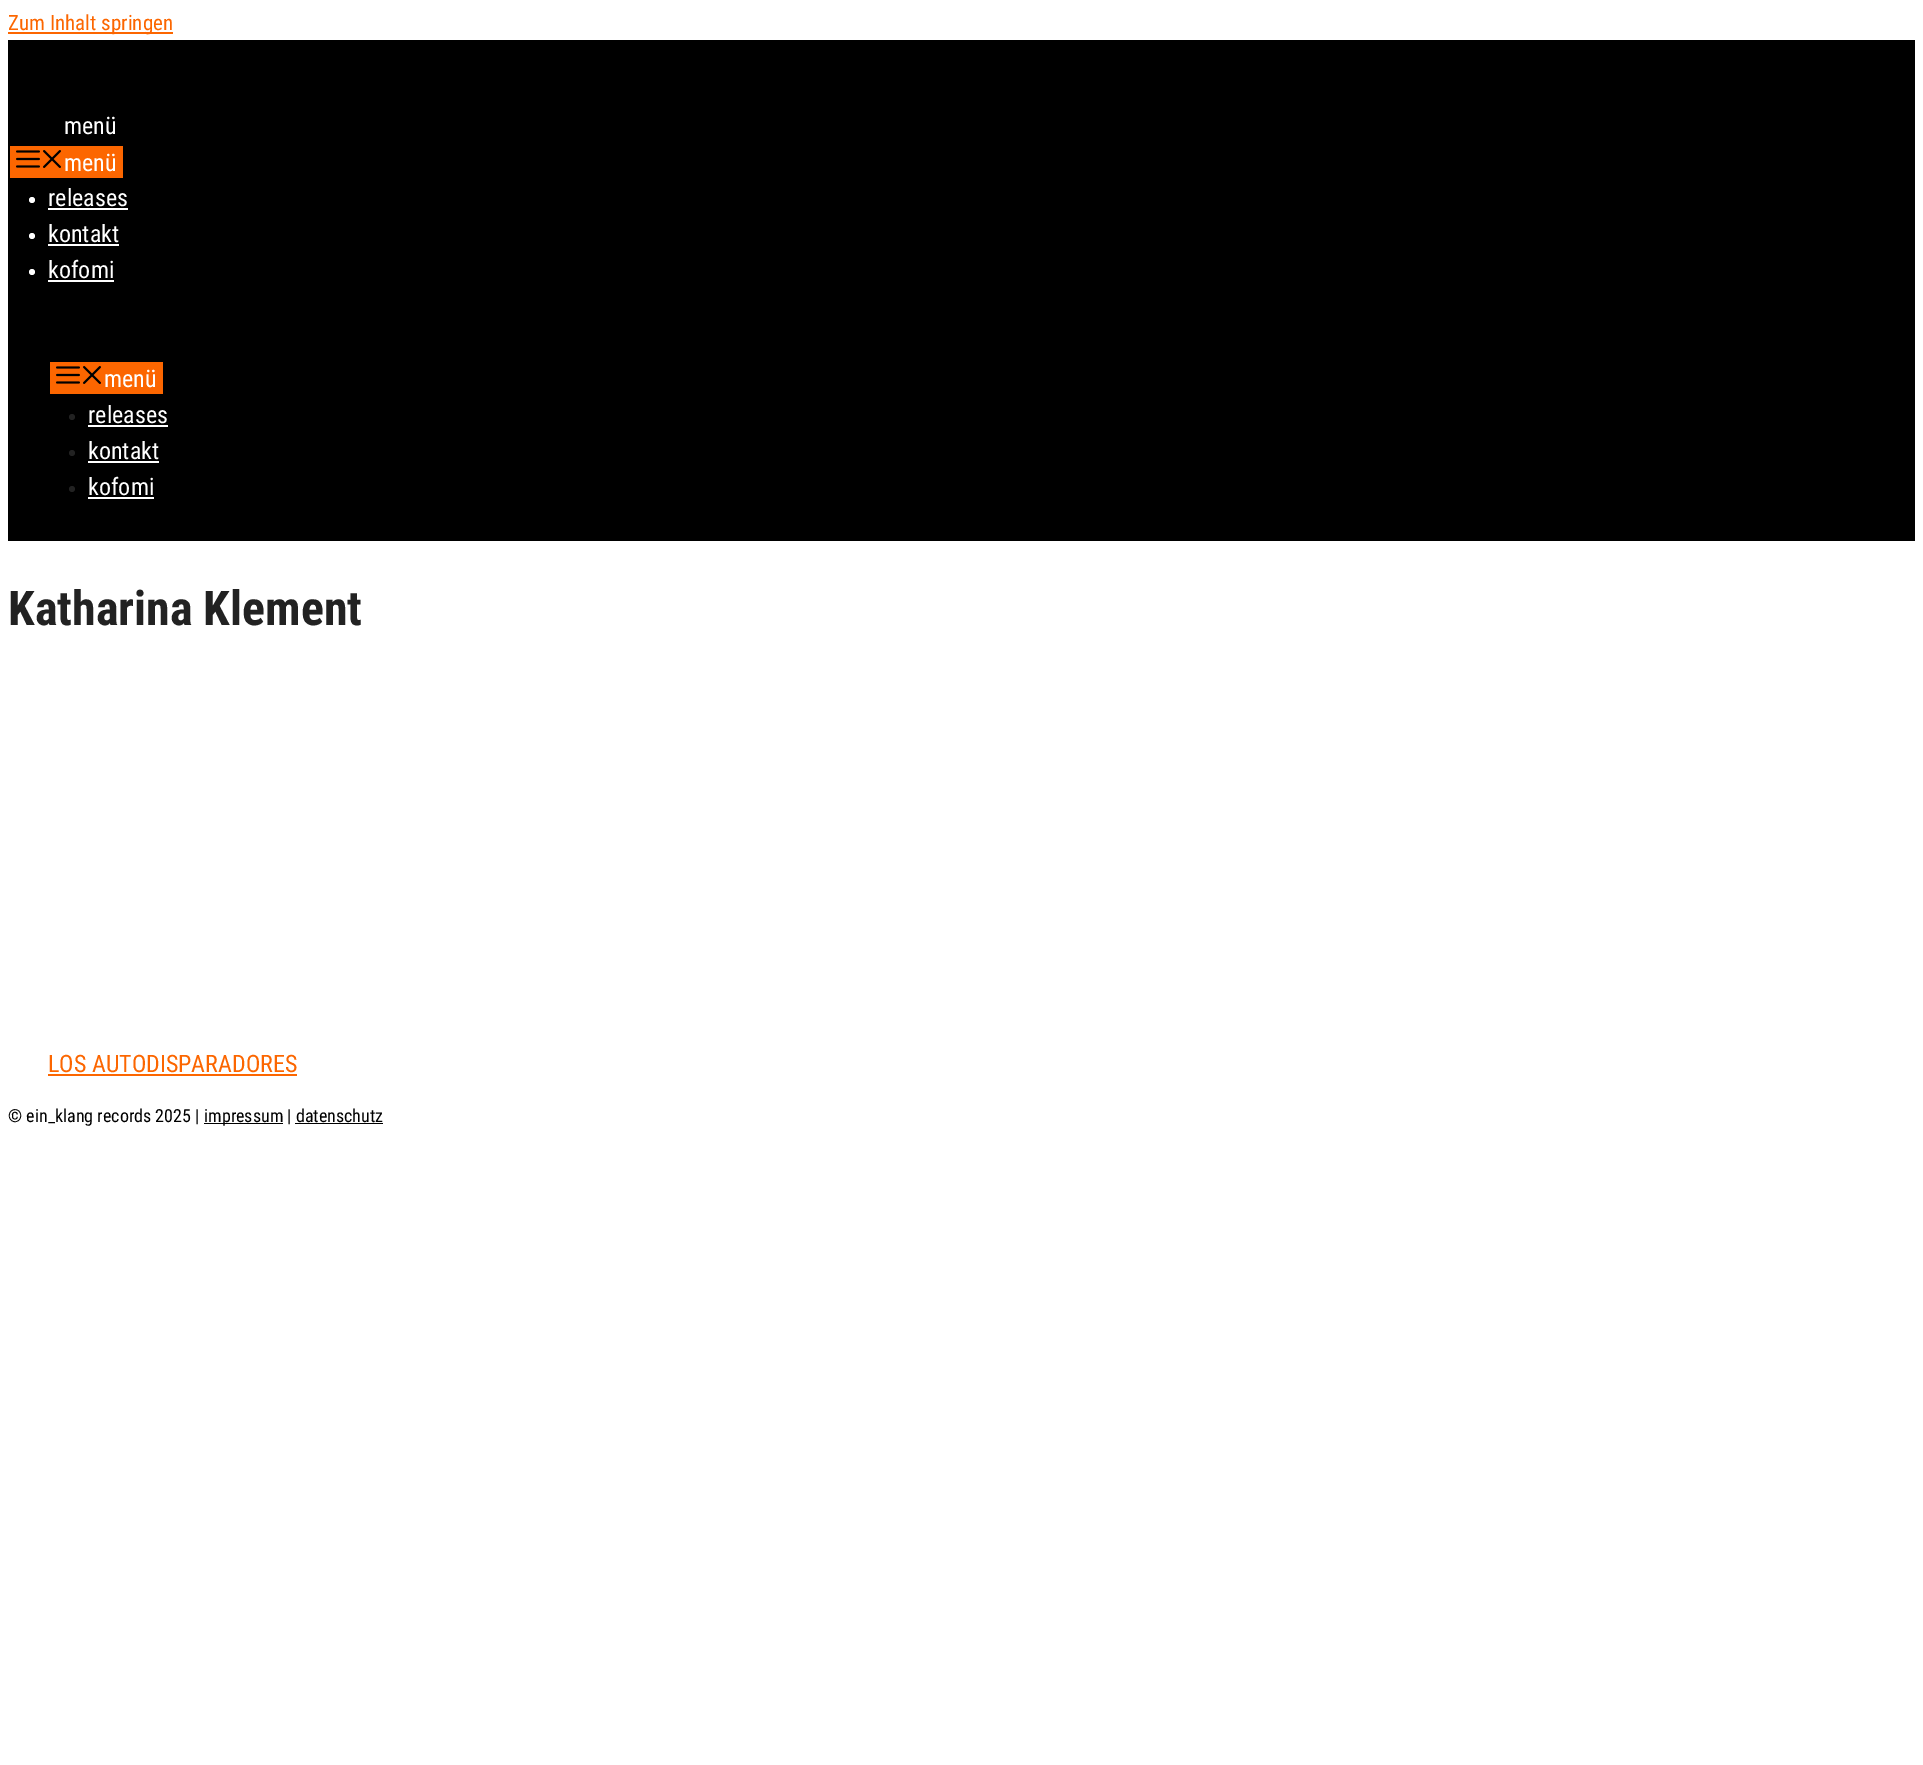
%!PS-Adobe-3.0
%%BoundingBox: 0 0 1923 1765
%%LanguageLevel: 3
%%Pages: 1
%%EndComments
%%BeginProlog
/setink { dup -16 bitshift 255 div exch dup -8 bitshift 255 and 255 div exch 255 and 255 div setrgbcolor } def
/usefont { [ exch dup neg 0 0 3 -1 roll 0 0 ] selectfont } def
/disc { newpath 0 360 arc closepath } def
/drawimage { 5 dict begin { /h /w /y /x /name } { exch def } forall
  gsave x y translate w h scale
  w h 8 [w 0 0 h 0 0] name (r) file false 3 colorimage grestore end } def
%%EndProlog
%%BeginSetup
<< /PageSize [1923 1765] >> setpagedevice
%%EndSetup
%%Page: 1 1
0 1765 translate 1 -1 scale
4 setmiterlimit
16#FFFFFF setink
0 0 1923 1765 rectfill
16#FC6600 setink
8 32 165 2 rectfill
/RobotoCondensed-Regular 21 usefont
8 30 moveto (Zum Inhalt springen) show
16#000000 setink
8 40 1907 501 rectfill
/RobotoCondensed-Regular 24 usefont
16#FFFFFF setink
64 134 moveto (menü) show
16#FC6600 setink
10 146 113 32 rectfill
(img1.raw) 16 150 24 18 drawimage
(img2.raw) 43 150 18 18 drawimage
16#FFFFFF setink
64 171 moveto (menü) show
32 200 3 disc fill
48 206 moveto (releases) show
48 208 80 2 rectfill
32 236 3 disc fill
48 242 moveto (kontakt) show
48 244 71 2 rectfill
32 272 3 disc fill
48 278 moveto (kofomi) show
48 280 66 2 rectfill
16#FC6600 setink
50 362 113 32 rectfill
(img1.raw) 56 366 24 18 drawimage
(img2.raw) 83 366 18 18 drawimage
16#FFFFFF setink
104 387 moveto (menü) show
16#222222 setink
72 417 3 disc fill
16#FFFFFF setink
88 423 moveto (releases) show
88 425 80 2 rectfill
16#222222 setink
72 453 3 disc fill
16#FFFFFF setink
88 459 moveto (kontakt) show
88 461 71 2 rectfill
16#222222 setink
72 489 3 disc fill
16#FFFFFF setink
88 495 moveto (kofomi) show
88 497 66 2 rectfill
/RobotoCondensed-Bold 48 usefont
16#222222 setink
8 625 moveto (Katharina Klement) show
/RobotoCondensed-Regular 24 usefont
16#FC6600 setink
48 1072 moveto (LOS AUTODISPARADORES) show
48 1074 249 2 rectfill
/RobotoCondensed-Regular 18 usefont
16#000000 setink
8 1122 moveto (© ein_klang records 2025 |) show
204 1123 79 1 rectfill
204 1122 moveto (impressum | datenschutz) show
295 1123 88 1 rectfill
showpage
%%EOF
